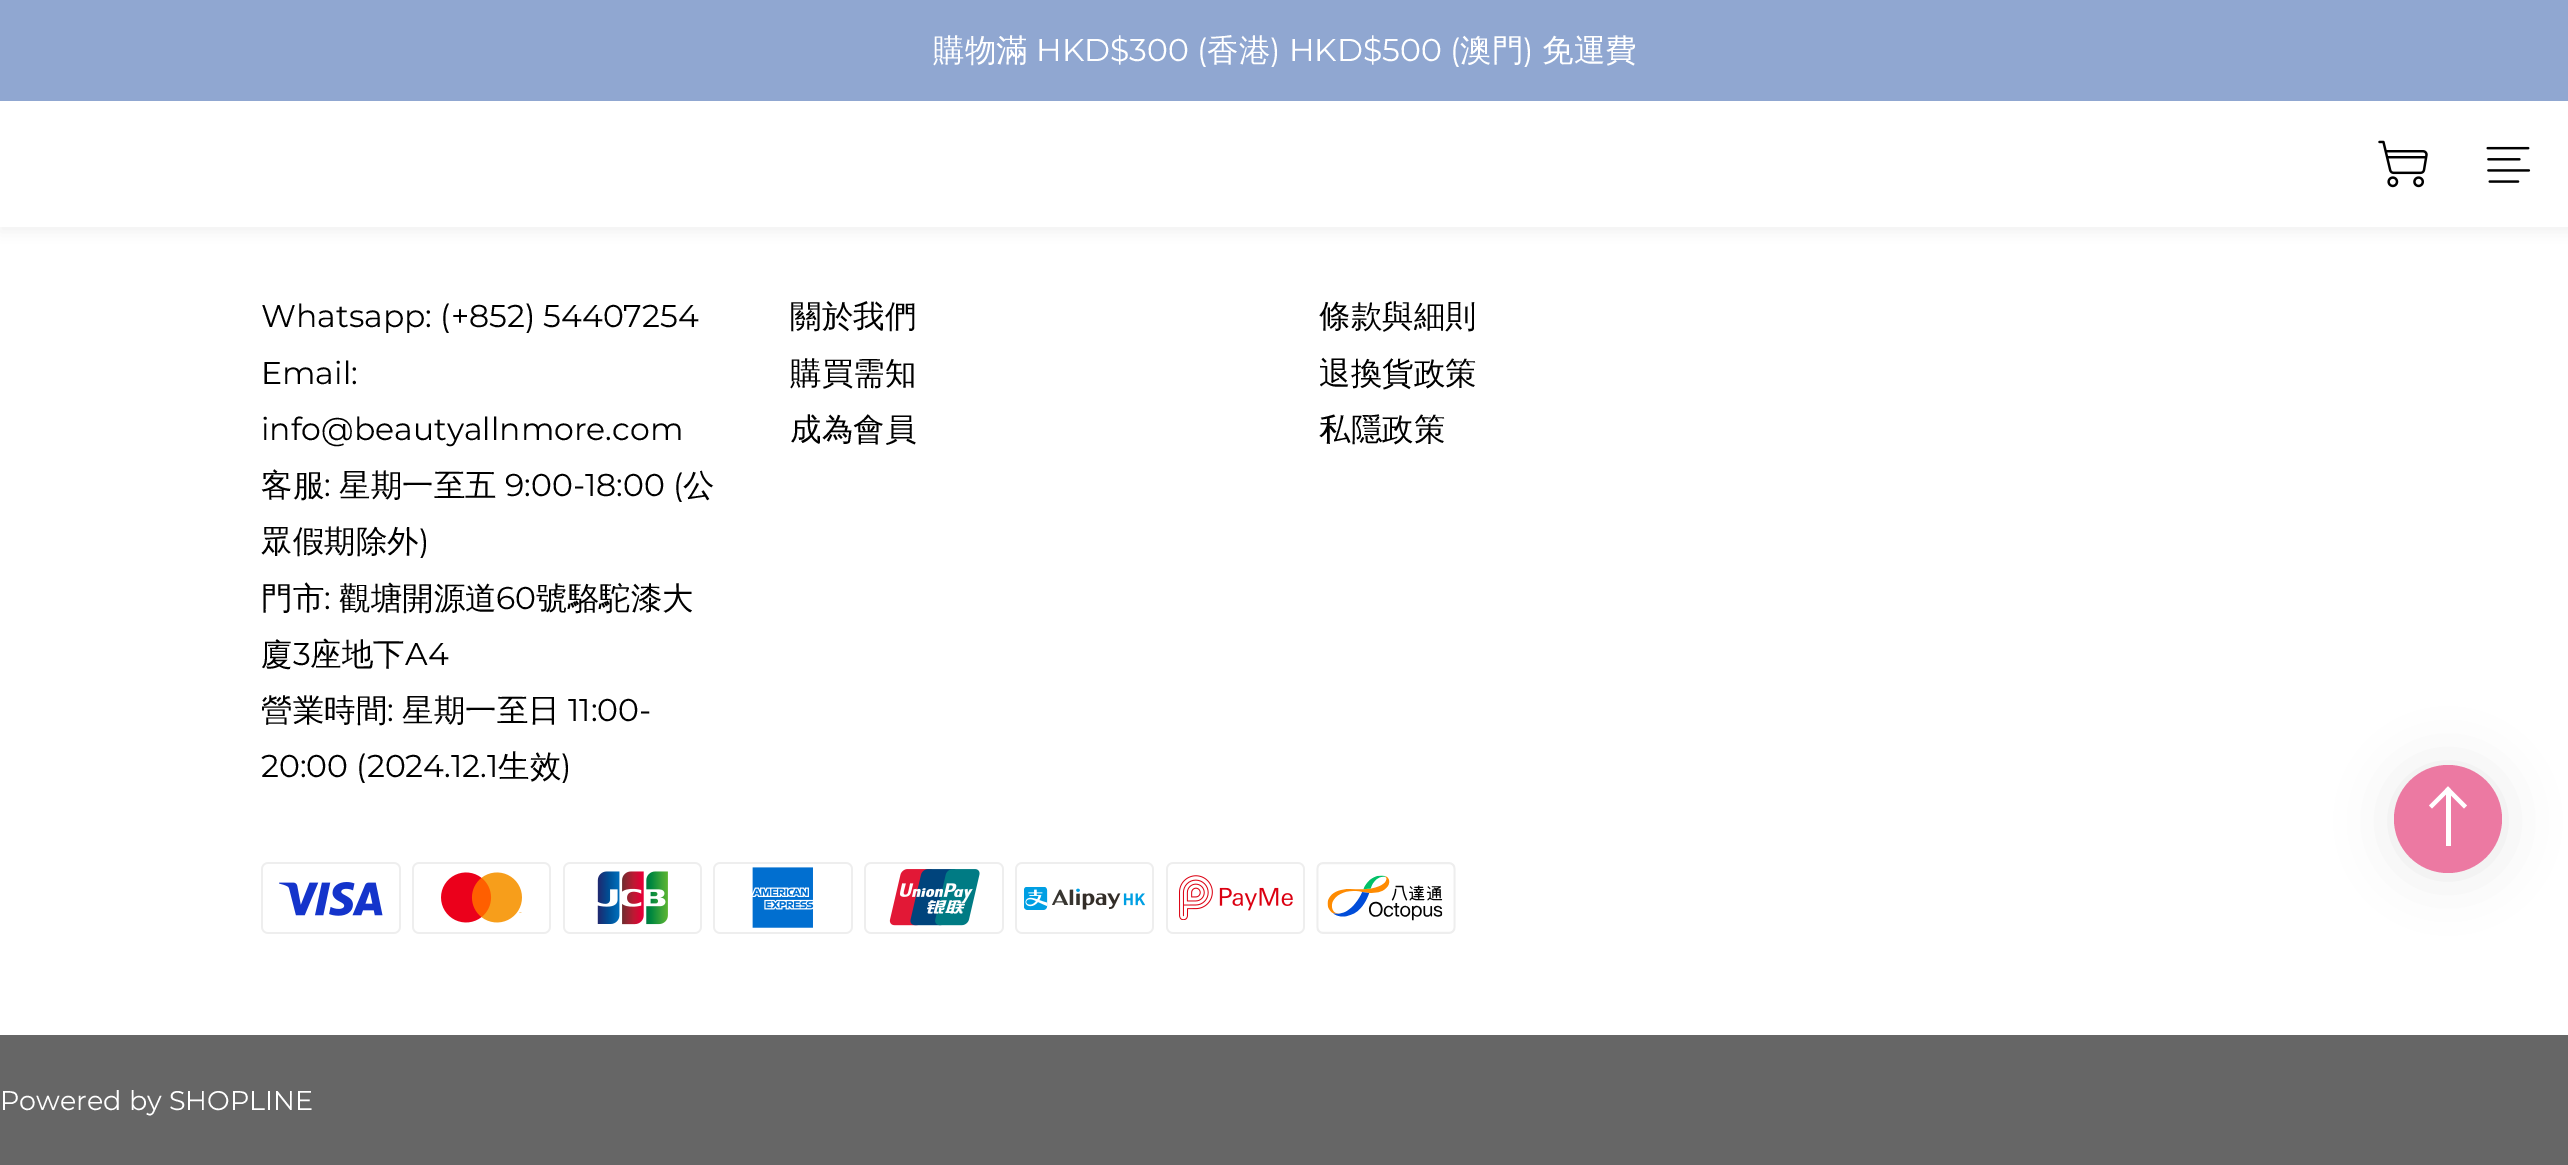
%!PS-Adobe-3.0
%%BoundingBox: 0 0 2568 1165
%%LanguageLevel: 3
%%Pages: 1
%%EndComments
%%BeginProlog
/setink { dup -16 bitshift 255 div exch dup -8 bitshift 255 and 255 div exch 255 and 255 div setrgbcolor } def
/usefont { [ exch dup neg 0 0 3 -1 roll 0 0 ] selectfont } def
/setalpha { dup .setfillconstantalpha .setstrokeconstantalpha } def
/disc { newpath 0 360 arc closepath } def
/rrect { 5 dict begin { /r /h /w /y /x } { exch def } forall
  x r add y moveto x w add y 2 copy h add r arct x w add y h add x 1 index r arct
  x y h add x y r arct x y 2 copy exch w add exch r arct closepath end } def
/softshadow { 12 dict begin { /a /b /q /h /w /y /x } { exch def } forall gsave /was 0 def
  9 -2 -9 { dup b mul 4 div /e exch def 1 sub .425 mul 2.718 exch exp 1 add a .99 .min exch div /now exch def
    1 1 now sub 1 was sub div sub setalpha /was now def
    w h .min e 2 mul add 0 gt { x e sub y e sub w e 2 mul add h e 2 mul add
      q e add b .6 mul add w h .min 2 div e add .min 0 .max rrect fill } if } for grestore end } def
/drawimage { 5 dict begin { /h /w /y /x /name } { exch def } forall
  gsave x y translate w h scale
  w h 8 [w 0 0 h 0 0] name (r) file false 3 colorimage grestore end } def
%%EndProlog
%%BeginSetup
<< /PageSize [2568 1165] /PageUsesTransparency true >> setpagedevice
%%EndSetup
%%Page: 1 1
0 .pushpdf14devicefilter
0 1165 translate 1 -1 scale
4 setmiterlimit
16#FFFFFF setink
0 0 2568 1165 rectfill
16#000000 setink
0 106 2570 126 0 7 0.06 softshadow
16#90A7D1 setink
0 0 2568 101 rectfill
/WenQuanYiZenHei-Medium 31.5 usefont
16#FFFFFF setink
933 61 moveto (購物滿) show
/Montserrat-Regular 31.5 usefont
1036 61 moveto (HKD$300 \() show
/WenQuanYiZenHei-Medium 31.5 usefont
1207 61 moveto (香港) show
/Montserrat-Regular 31.5 usefont
1270 61 moveto (\) HKD$500 \() show
/WenQuanYiZenHei-Medium 31.5 usefont
1460 61 moveto (澳門) show
/Montserrat-Regular 31.5 usefont
1523 61 moveto (\)) show
/WenQuanYiZenHei-Medium 31.5 usefont
1542 61 moveto (免運費) show
0 101 2568 126 rectfill
(img1.raw) 2378 140 50 48 drawimage
(img2.raw) 2486 146 45 37 drawimage
/Montserrat-Regular 31.5 usefont
16#000000 setink
[
    [(Whatsapp: \(+852\) 54407254) 261 327]
    [(Email:) 261 384]
    [(info@beautyallnmore.com) 261 440]
] { aload pop moveto show } forall
/WenQuanYiZenHei-Medium 31.5 usefont
261 496 moveto (客服) show
/Montserrat-Regular 31.5 usefont
324 496 moveto (:) show
/WenQuanYiZenHei-Medium 31.5 usefont
339 496 moveto (星期一至五) show
/Montserrat-Regular 31.5 usefont
505 496 moveto (9:00-18:00 \() show
/WenQuanYiZenHei-Medium 31.5 usefont
683 496 moveto (公) show
261 552 moveto (眾假期除外) show
/Montserrat-Regular 31.5 usefont
419 552 moveto (\)) show
/WenQuanYiZenHei-Medium 31.5 usefont
261 609 moveto (門市) show
/Montserrat-Regular 31.5 usefont
324 609 moveto (:) show
/WenQuanYiZenHei-Medium 31.5 usefont
339 609 moveto (觀塘開源道) show
/Montserrat-Regular 31.5 usefont
496 609 moveto (60) show
/WenQuanYiZenHei-Medium 31.5 usefont
536 609 moveto (號駱駝漆大) show
261 665 moveto (廈) show
/Montserrat-Regular 31.5 usefont
293 665 moveto (3) show
/WenQuanYiZenHei-Medium 31.5 usefont
310 665 moveto (座地下) show
/Montserrat-Regular 31.5 usefont
405 665 moveto (A4) show
/WenQuanYiZenHei-Medium 31.5 usefont
261 721 moveto (營業時間) show
/Montserrat-Regular 31.5 usefont
387 721 moveto (:) show
/WenQuanYiZenHei-Medium 31.5 usefont
402 721 moveto (星期一至日) show
/Montserrat-Regular 31.5 usefont
568 721 moveto (11:00-) show
261 777 moveto (20:00 \(2024.12.1) show
/WenQuanYiZenHei-Medium 31.5 usefont
498 777 moveto (生效) show
/Montserrat-Regular 31.5 usefont
561 777 moveto (\)) show
/WenQuanYiZenHei-Medium 31.5 usefont
[
    [(關於我們) 790 327]
    [(購買需知) 790 384]
    [(成為會員) 790 440]
    [(條款與細則) 1319 327]
    [(退換貨政策) 1319 384]
    [(私隱政策) 1319 440]
] { aload pop moveto show } forall
(img3.raw) 261 862 140 72 drawimage
(img4.raw) 412 862 139 72 drawimage
(img5.raw) 563 862 139 72 drawimage
(img6.raw) 713 862 140 72 drawimage
(img7.raw) 864 862 140 72 drawimage
(img8.raw) 1015 862 139 72 drawimage
(img9.raw) 1166 862 139 72 drawimage
(img10.raw) 1316 862 140 72 drawimage
16#666666 setink
0 1035 2568 130 rectfill
/Montserrat-Regular 27 usefont
16#FFFFFF setink
0 1110 moveto (Powered by SHOPLINE) show
16#000000 setink
2394 767 108 108 54 27 0.09 softshadow
16#EC79A2 setink
2448 819 54 disc fill
16#FFFFFF setink
2448 786.5 moveto 2467 805.5 lineto 2464 808.5 lineto 2445 789.5 lineto closepath fill
2448 786.5 moveto 2451 789.5 lineto 2432 808.5 lineto 2429 805.5 lineto closepath fill
2446 792 5 54 rectfill
.poppdf14devicefilter showpage
%%EOF
